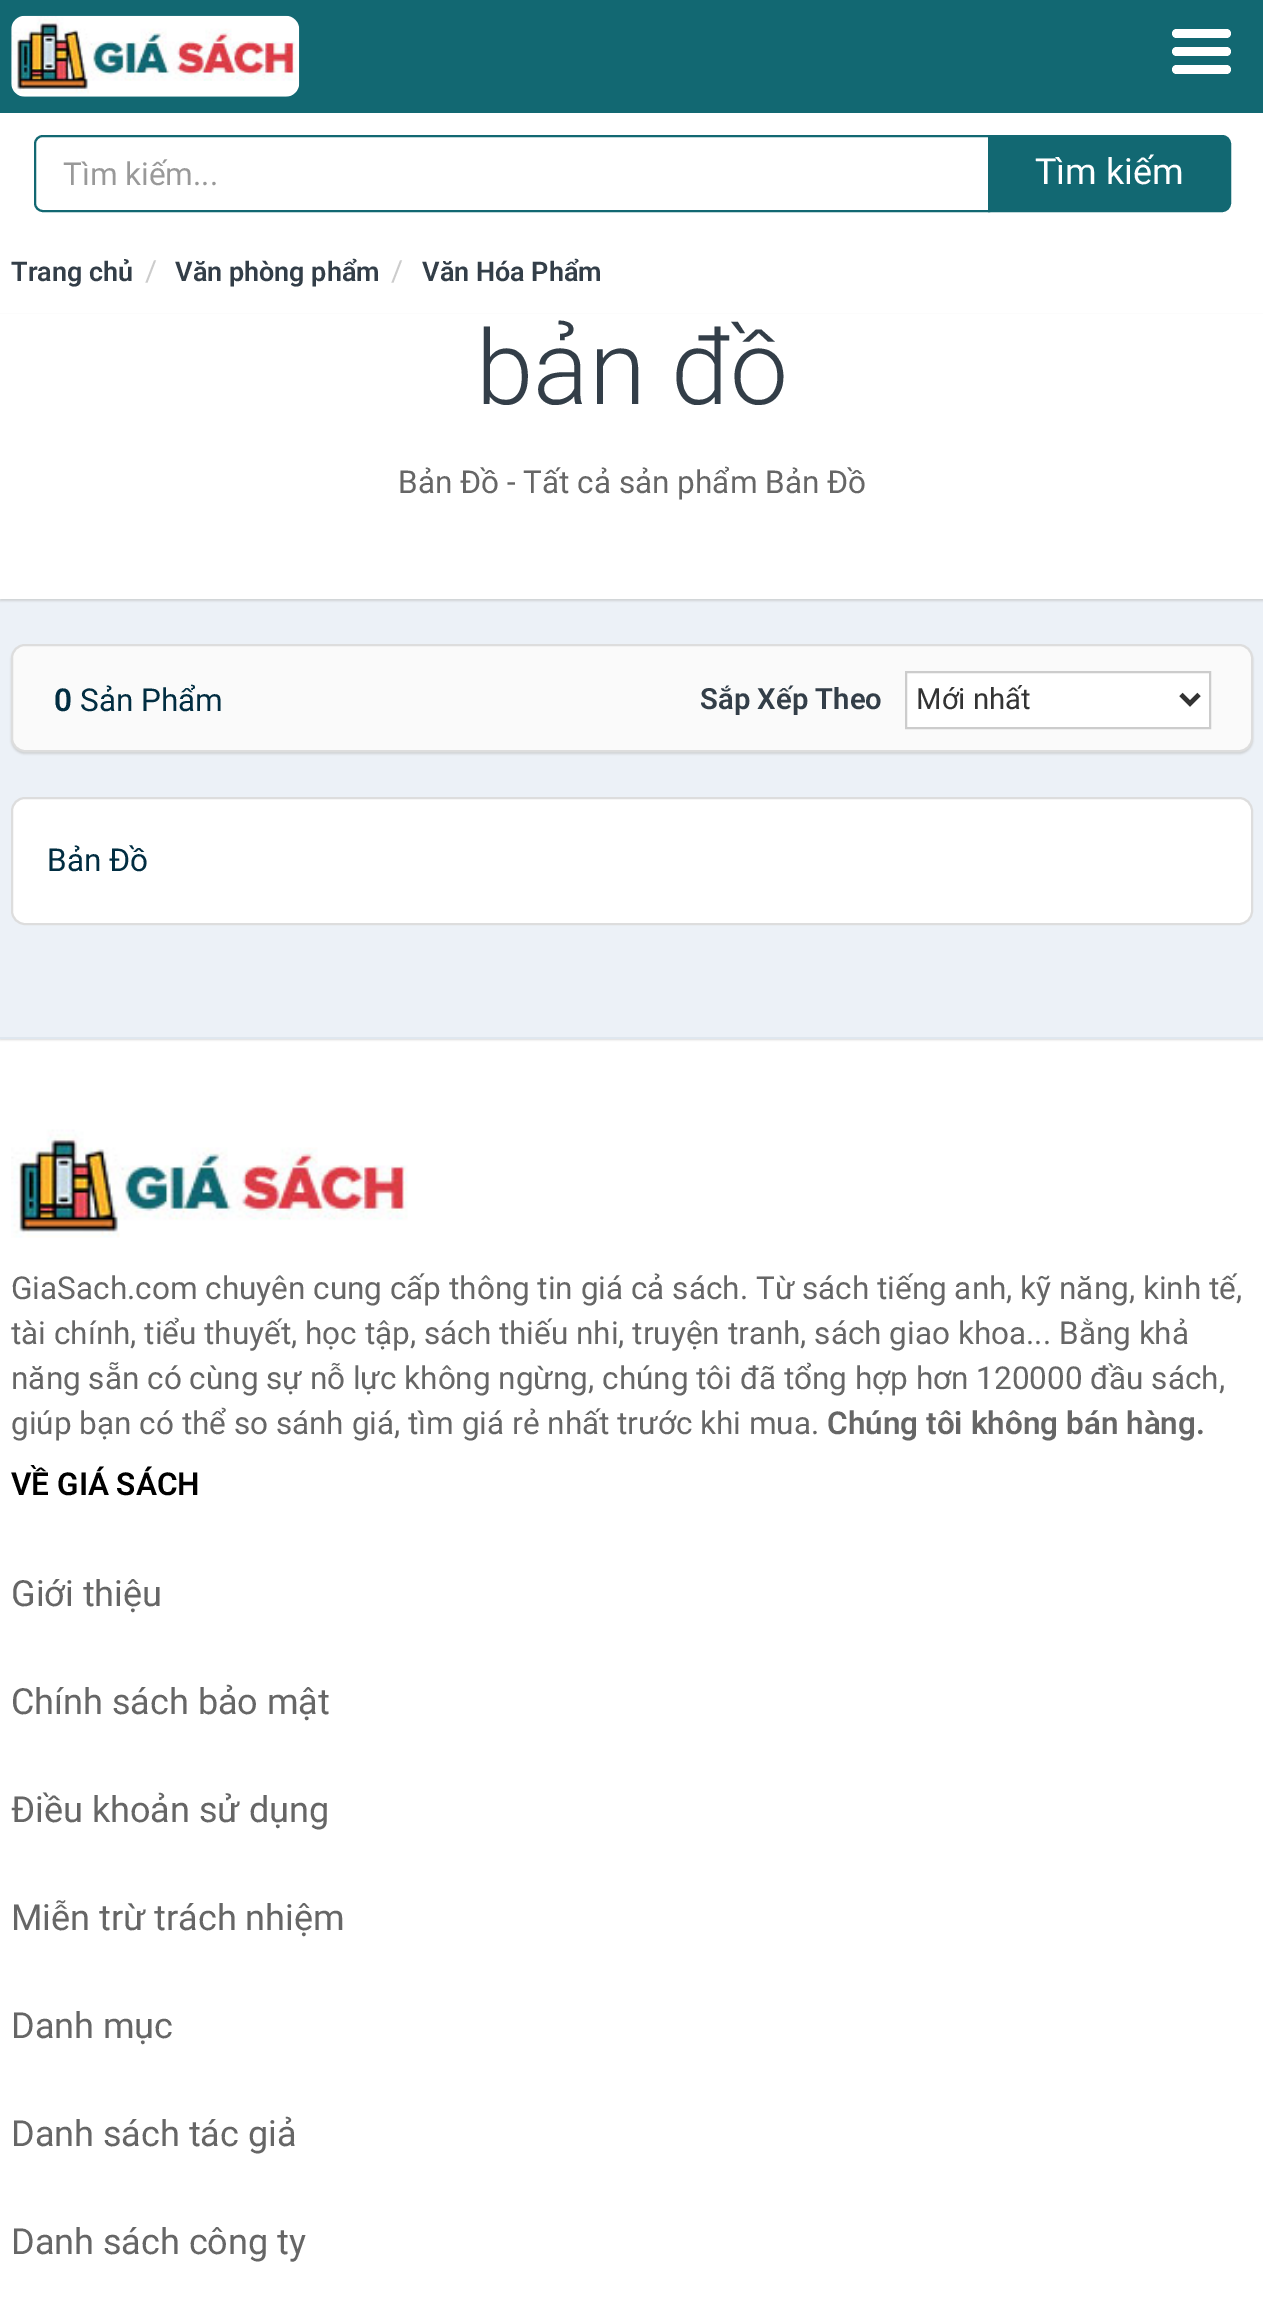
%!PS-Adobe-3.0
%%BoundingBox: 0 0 1263 2322
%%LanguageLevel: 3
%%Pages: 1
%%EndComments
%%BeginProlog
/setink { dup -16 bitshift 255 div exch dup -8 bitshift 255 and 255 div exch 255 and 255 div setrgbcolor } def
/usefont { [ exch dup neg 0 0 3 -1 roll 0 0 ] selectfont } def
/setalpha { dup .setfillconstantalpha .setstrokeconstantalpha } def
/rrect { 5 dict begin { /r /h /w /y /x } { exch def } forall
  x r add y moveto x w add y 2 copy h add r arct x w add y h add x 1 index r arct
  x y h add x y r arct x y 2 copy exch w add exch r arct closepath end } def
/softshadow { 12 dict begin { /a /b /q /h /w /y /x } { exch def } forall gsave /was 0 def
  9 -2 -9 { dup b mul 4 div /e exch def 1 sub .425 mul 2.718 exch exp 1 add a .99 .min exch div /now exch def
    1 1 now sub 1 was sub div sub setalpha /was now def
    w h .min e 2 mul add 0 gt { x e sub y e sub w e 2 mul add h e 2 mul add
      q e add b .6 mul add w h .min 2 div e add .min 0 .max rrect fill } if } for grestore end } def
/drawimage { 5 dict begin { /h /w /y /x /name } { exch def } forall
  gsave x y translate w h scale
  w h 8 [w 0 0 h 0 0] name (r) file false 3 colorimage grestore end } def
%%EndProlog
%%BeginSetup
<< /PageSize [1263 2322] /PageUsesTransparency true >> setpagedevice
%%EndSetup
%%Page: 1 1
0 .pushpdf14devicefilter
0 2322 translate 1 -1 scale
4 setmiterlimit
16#FFFFFF setink
0 0 1263 2322 rectfill
16#126872 setink
0 0 1263 113 rectfill
(img1.raw) 11 15 289 82 drawimage
16#FFFFFF setink
1172 29 59 9 4.5 rrect fill
1172 47 59 9 4.5 rrect fill
1172 65 59 9 4.5 rrect fill
16#126872 setink
2 setlinewidth
43 136 moveto 989 136 lineto 989 211 lineto 43 211 lineto 38.5 211 35 207.5 35 203 curveto 35 144 lineto 35 139.5 38.5 136 43 136 curveto closepath stroke
/Roboto-Regular 31.5 usefont
16#999999 setink
63 185 moveto (Tìm kiếm...) show
16#126872 setink
989 136 moveto 1222 136 lineto 1226.5 136 1230 139.5 1230 144 curveto 1230 203 lineto 1230 207.5 1226.5 211 1222 211 curveto 989 211 lineto closepath gsave fill grestore
stroke
/Roboto-Regular 36 usefont
16#FFFFFF setink
1035 184 moveto (Tìm kiếm) show
/Roboto-SemiBold 27 usefont
16#333E48 setink
11 281 moveto (Trang chủ) show
/Roboto-Regular 29.25 usefont
16#CCCCCC setink
145 281 moveto (/) show
/Roboto-SemiBold 27 usefont
16#333E48 setink
175 281 moveto (Văn phòng phẩm) show
/Roboto-Regular 29.25 usefont
16#CCCCCC setink
391 281 moveto (/) show
/Roboto-SemiBold 27 usefont
16#333E48 setink
422 281 moveto (Văn Hóa Phẩm) show
16#ECF1F7 setink
0 599 1263 438 rectfill
16#B4B4B4 setink
0 315 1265 286 0 1 0.5 softshadow
16#FFFFFF setink
0 314 1263 285 rectfill
/Roboto-Light 103.5 usefont
16#333E48 setink
476 404 moveto (bản đồ) show
/Roboto-Regular 31.5 usefont
16#666666 setink
398 493 moveto (Bản Đồ - Tất cả sản phẩm Bản Đồ) show
16#B4B4B4 setink
11 646 1242 108 14 1 0.5 softshadow
16#FAFAFA setink
12 645 1240 106 13 rrect gsave fill grestore
16#DDDDDD setink
stroke
/Roboto-SemiBold 31.5 usefont
16#012D41 setink
54 711 moveto (0) show
/Roboto-Regular 31.5 usefont
80 711 moveto (Sản Phẩm) show
/Roboto-SemiBold 29.25 usefont
16#333E48 setink
700 709 moveto (Sắp Xếp Theo) show
16#FFFFFF setink
906 672 moveto 1210 672 lineto 1210 728 lineto 906 728 lineto closepath gsave fill grestore
16#CCCCCC setink
stroke
16#333333 setink
4.5 setlinewidth
1181 694.5 moveto 1190 703.5 lineto 1199 694.5 lineto stroke
/Roboto-Regular 29.25 usefont
916 709 moveto (Mới nhất) show
gsave
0 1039 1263 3 rectclip
16#B4B4B4 setink
0 799 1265 241 0 1 0.5 softshadow
grestore
16#FFFFFF setink
12 798 1240 126 13 rrect gsave fill grestore
16#DDDDDD setink
2 setlinewidth
stroke
/Roboto-Regular 31.5 usefont
16#012D41 setink
47 871 moveto (Bản Đồ) show
16#DFE7EF setink
0 1037 1263 2 rectfill
(img2.raw) 11 1129 397 109 drawimage
16#666666 setink
[
    [(GiaSach.com chuyên cung cấp thông tin giá cả sách. Từ sách tiếng anh, kỹ năng, kinh tế,) 11 1299]
    [(tài chính, tiểu thuyết, học tập, sách thiếu nhi, truyện tranh, sách giao khoa... Bằng khả) 11 1344]
    [(năng sẵn có cùng sự nỗ lực không ngừng, chúng tôi đã tổng hợp hơn 120000 đầu sách,) 11 1389]
    [(giúp bạn có thể so sánh giá, tìm giá rẻ nhất trước khi mua.) 11 1434]
] { aload pop moveto show } forall
/Roboto-SemiBold 31.5 usefont
827 1434 moveto (Chúng tôi không bán hàng.) show
16#000000 setink
11 1495 moveto (VỀ GIÁ SÁCH) show
/Roboto-Regular 36 usefont
16#666666 setink
[
    [(Giới thiệu) 11 1606]
    [(Chính sách bảo mật) 11 1714]
    [(Điều khoản sử dụng) 11 1822]
    [(Miễn trừ trách nhiệm) 11 1930]
    [(Danh mục) 11 2038]
    [(Danh sách tác giả) 11 2146]
    [(Danh sách công ty) 11 2254]
] { aload pop moveto show } forall
.poppdf14devicefilter showpage
%%EOF
